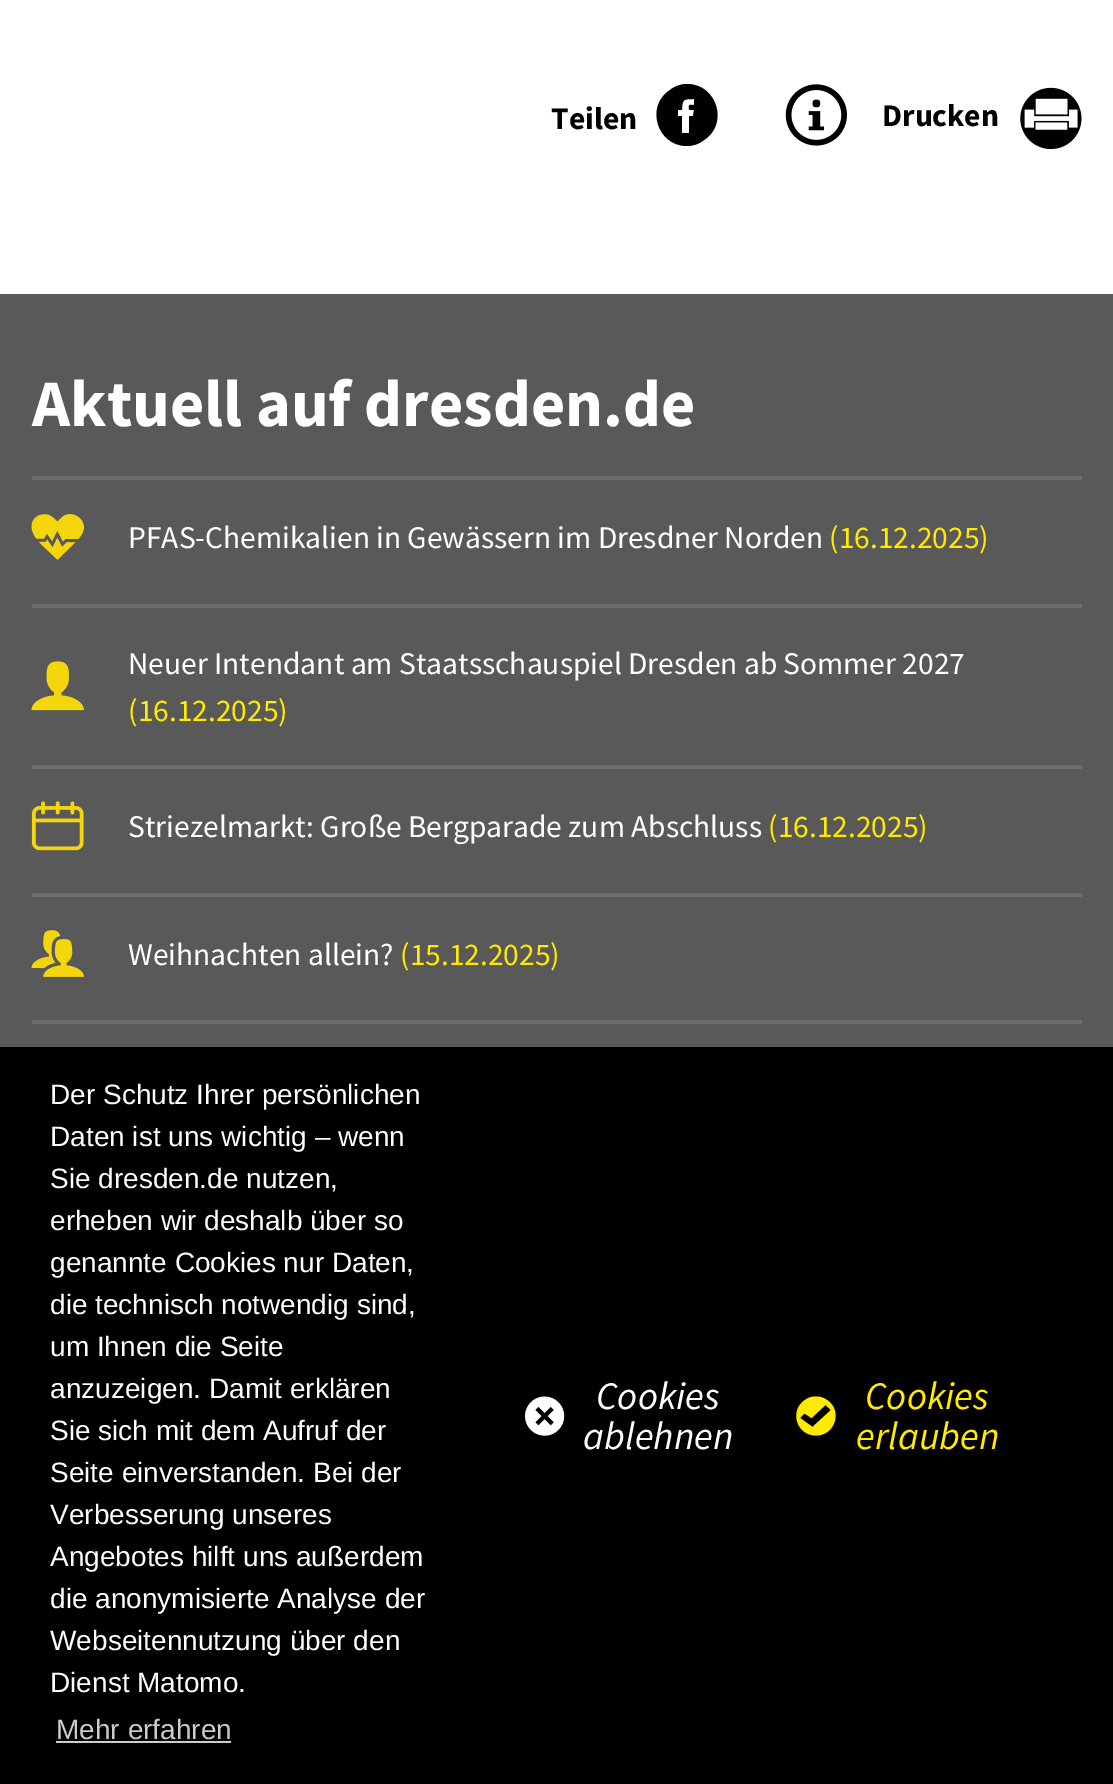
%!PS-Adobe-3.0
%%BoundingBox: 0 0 1113 1784
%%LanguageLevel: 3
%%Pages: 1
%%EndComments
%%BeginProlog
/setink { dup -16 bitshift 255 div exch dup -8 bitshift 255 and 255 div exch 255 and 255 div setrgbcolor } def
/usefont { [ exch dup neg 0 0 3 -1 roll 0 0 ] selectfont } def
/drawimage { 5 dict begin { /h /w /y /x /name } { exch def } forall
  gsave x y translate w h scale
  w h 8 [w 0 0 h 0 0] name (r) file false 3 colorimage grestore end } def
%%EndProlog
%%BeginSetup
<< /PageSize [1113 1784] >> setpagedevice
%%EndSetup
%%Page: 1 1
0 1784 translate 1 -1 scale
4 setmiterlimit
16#FFFFFF setink
0 0 1113 1784 rectfill
/SourceSansPro-Bold 31.5 usefont
16#000000 setink
551 129 moveto (Teilen) show
687 84 moveto 681 84 675 86 670 90 curveto 645 106 657 146 687 146 curveto 693 146 699 144 704 140 curveto 729 124 717 84 687 84 curveto closepath 693 116 moveto 689 116 lineto 689 133 lineto 682 133 lineto 682 116 lineto 678 116 lineto 678 110 lineto 682 110 lineto 682 99 684 99 694 99 curveto 694 105 lineto 688 105 689 104 689 110 curveto 694 110 lineto closepath fill
(img1.raw) 785 84 62 62 drawimage
882 126 moveto (Drucken) show
(img2.raw) 1020 87 62 63 drawimage
16#595959 setink
0 294 1113 753 rectfill
/SourceSansPro-Bold 66.5 usefont
16#FFFFFF setink
32 426 moveto (Aktuell auf dresden.de) show
16#6D6D6D setink
32 476 1050 4 rectfill
32 604 1050 4 rectfill
(img3.raw) 31 514 53 46 drawimage
/SourceSansPro-Regular 31.5 usefont
16#FFFFFF setink
128 548 moveto (PFAS-Chemikalien in Gewässern im Dresdner Norden) show
16#FFEA00 setink
829 548 moveto (\(16.12.2025\)) show
16#6D6D6D setink
32 765 1050 4 rectfill
(img4.raw) 31 661 53 50 drawimage
16#FFFFFF setink
128 674 moveto (Neuer Intendant am Staatsschauspiel Dresden ab Sommer 2027) show
16#FFEA00 setink
128 721 moveto (\(16.12.2025\)) show
16#6D6D6D setink
32 893 1050 4 rectfill
(img5.raw) 31 801 53 50 drawimage
16#FFFFFF setink
128 837 moveto (Striezelmarkt: Große Bergparade zum Abschluss) show
16#FFEA00 setink
768 837 moveto (\(16.12.2025\)) show
16#6D6D6D setink
32 1020 1050 4 rectfill
(img6.raw) 31 930 53 47 drawimage
16#FFFFFF setink
128 965 moveto (Weihnachten allein?) show
16#FFEA00 setink
400 965 moveto (\(15.12.2025\)) show
16#000000 setink
0 1047 1113 737 rectfill
/LiberationSans-Regular 28 usefont
16#FFFFFF setink
[
    [(Der Schutz Ihrer persönlichen) 50 1104]
    [(Daten ist uns wichtig – wenn) 50 1146]
    [(Sie dresden.de nutzen,) 50 1188]
    [(erheben wir deshalb über so) 50 1230]
    [(genannte Cookies nur Daten,) 50 1272]
    [(die technisch notwendig sind,) 50 1314]
    [(um Ihnen die Seite) 50 1356]
    [(anzuzeigen. Damit erklären) 50 1398]
    [(Sie sich mit dem Aufruf der) 50 1440]
    [(Seite einverstanden. Bei der) 50 1482]
    [(Verbesserung unseres) 50 1524]
    [(Angebotes hilft uns außerdem) 50 1566]
    [(die anonymisierte Analyse der) 50 1608]
    [(Webseitennutzung über den) 50 1650]
    [(Dienst Matomo.) 50 1692]
] { aload pop moveto show } forall
16#CCCCCC setink
56 1739 moveto (Mehr erfahren) show
56 1741 175 2 rectfill
(img7.raw) 525 1396 40 40 drawimage
/SourceSansPro-Italic 39 usefont
16#FFFFFF setink
596 1409 moveto (Cookies) show
583 1449 moveto (ablehnen) show
16#FFEA00 setink
816 1396.5 moveto 812 1396.5 808 1397.5 805 1400 curveto 789 1410.5 796.5 1435.5 816 1435.5 curveto 835 1435.5 843 1410.5 827 1400 curveto 823.5 1397.5 820 1396.5 816 1396.5 curveto closepath 811.5 1418 moveto 825.5 1405 lineto 831 1410 lineto 812.5 1427 lineto 800 1418 lineto 804.5 1413.5 lineto closepath fill
865 1409 moveto (Cookies) show
856 1449 moveto (erlauben) show
showpage
%%EOF
